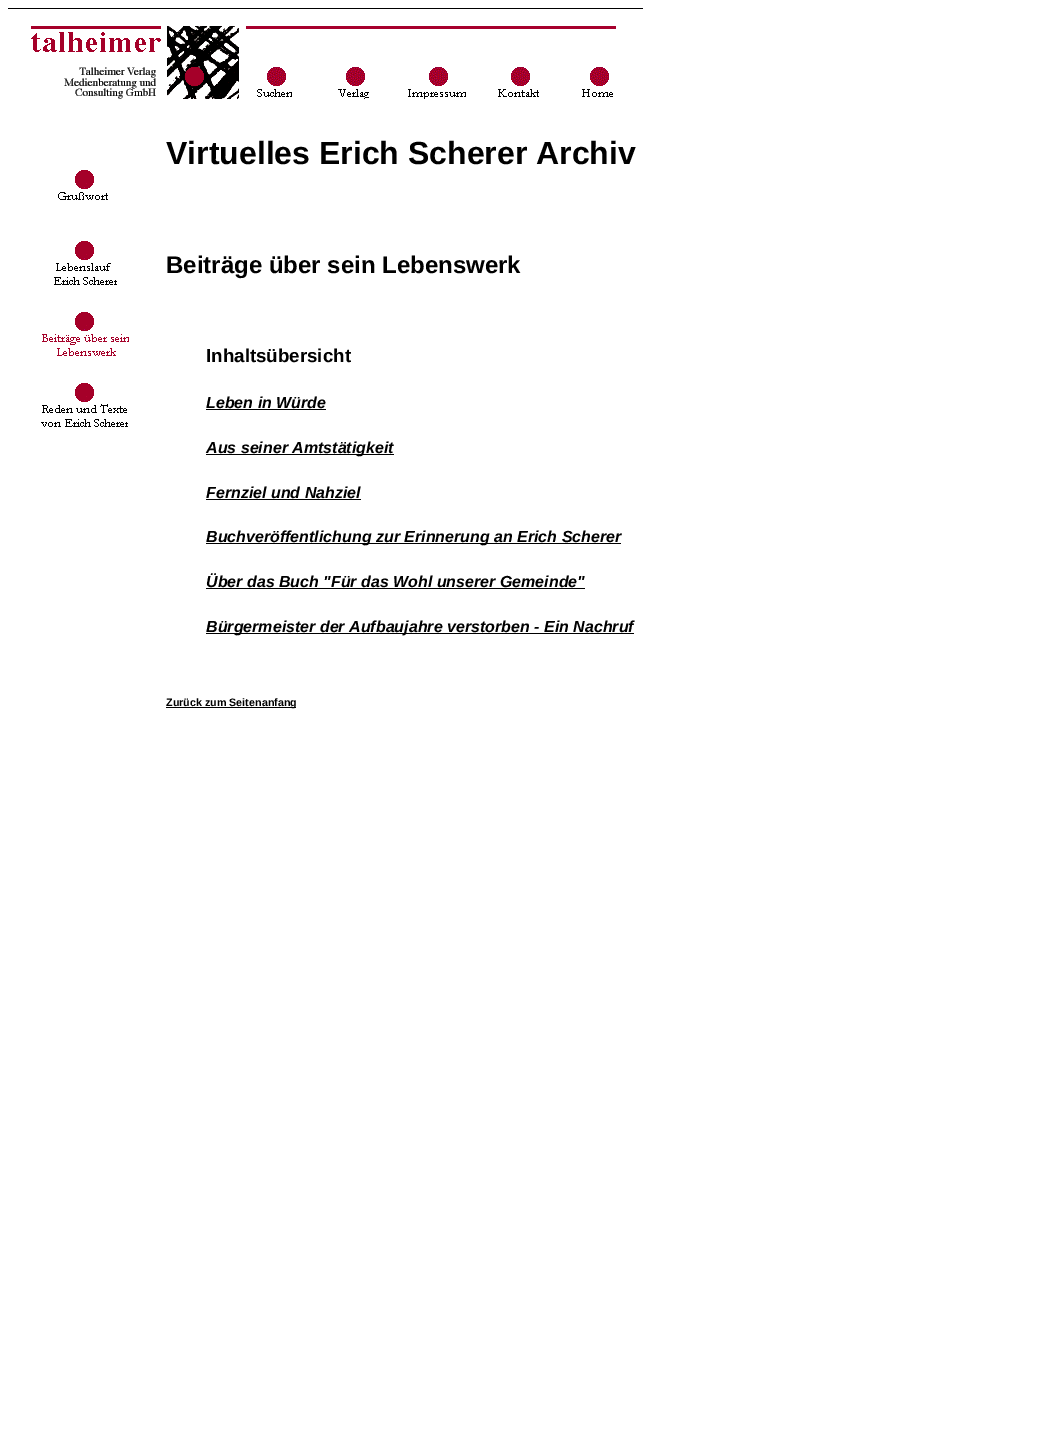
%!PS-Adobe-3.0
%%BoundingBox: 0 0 1055 1434
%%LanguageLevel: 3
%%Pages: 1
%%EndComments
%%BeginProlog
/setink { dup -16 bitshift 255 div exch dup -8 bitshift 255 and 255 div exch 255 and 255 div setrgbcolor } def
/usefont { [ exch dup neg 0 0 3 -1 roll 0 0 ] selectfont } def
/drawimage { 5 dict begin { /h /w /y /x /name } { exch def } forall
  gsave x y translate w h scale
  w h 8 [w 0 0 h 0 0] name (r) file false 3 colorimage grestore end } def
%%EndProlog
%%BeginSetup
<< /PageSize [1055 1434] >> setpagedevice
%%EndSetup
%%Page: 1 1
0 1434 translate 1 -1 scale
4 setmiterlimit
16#FFFFFF setink
0 0 1055 1434 rectfill
16#000000 setink
8 8 635 1 rectfill
(img1.raw) 31 26 208 41 drawimage
16#A6002D setink
246 26 370 3 rectfill
(img2.raw) 64 67 175 32 drawimage
(img3.raw) 257 67 35 30 drawimage
(img4.raw) 338 67 31 32 drawimage
(img5.raw) 408 67 58 32 drawimage
(img6.raw) 498 67 41 30 drawimage
(img7.raw) 582 67 31 30 drawimage
(img8.raw) 58 170 50 30 drawimage
(img9.raw) 54 241 63 44 drawimage
(img10.raw) 42 312 87 44 drawimage
(img11.raw) 41 383 87 44 drawimage
/LiberationSans-Bold 32 usefont
16#000000 setink
166 164 moveto (Virtuelles Erich Scherer Archiv) show
/LiberationSans-Bold 24 usefont
166 273 moveto (Beiträge über sein Lebenswerk) show
/LiberationSans-Bold 18.75 usefont
206 362 moveto (Inhaltsübersicht) show
/LiberationSans-BoldItalic 16 usefont
206 408 moveto (Leben in Würde) show
206 409 120 1 rectfill
206 454 188 1 rectfill
206 453 moveto (Aus seiner Amtstätigkeit) show
206 498 moveto (Fernziel und Nahziel) show
206 499 155 1 rectfill
206 543 415 1 rectfill
206 542 moveto (Buchveröffentlichung zur Erinnerung an Erich Scherer) show
206 587 moveto (Über das Buch "Für das Wohl unserer Gemeinde") show
206 588 379 1 rectfill
206 633 428 1 rectfill
206 632 moveto (Bürgermeister der Aufbaujahre verstorben - Ein Nachruf) show
166 707 130 1 rectfill
/LiberationSans-Bold 10.75 usefont
166 706 moveto (Zurück zum Seitenanfang) show
showpage
%%EOF
